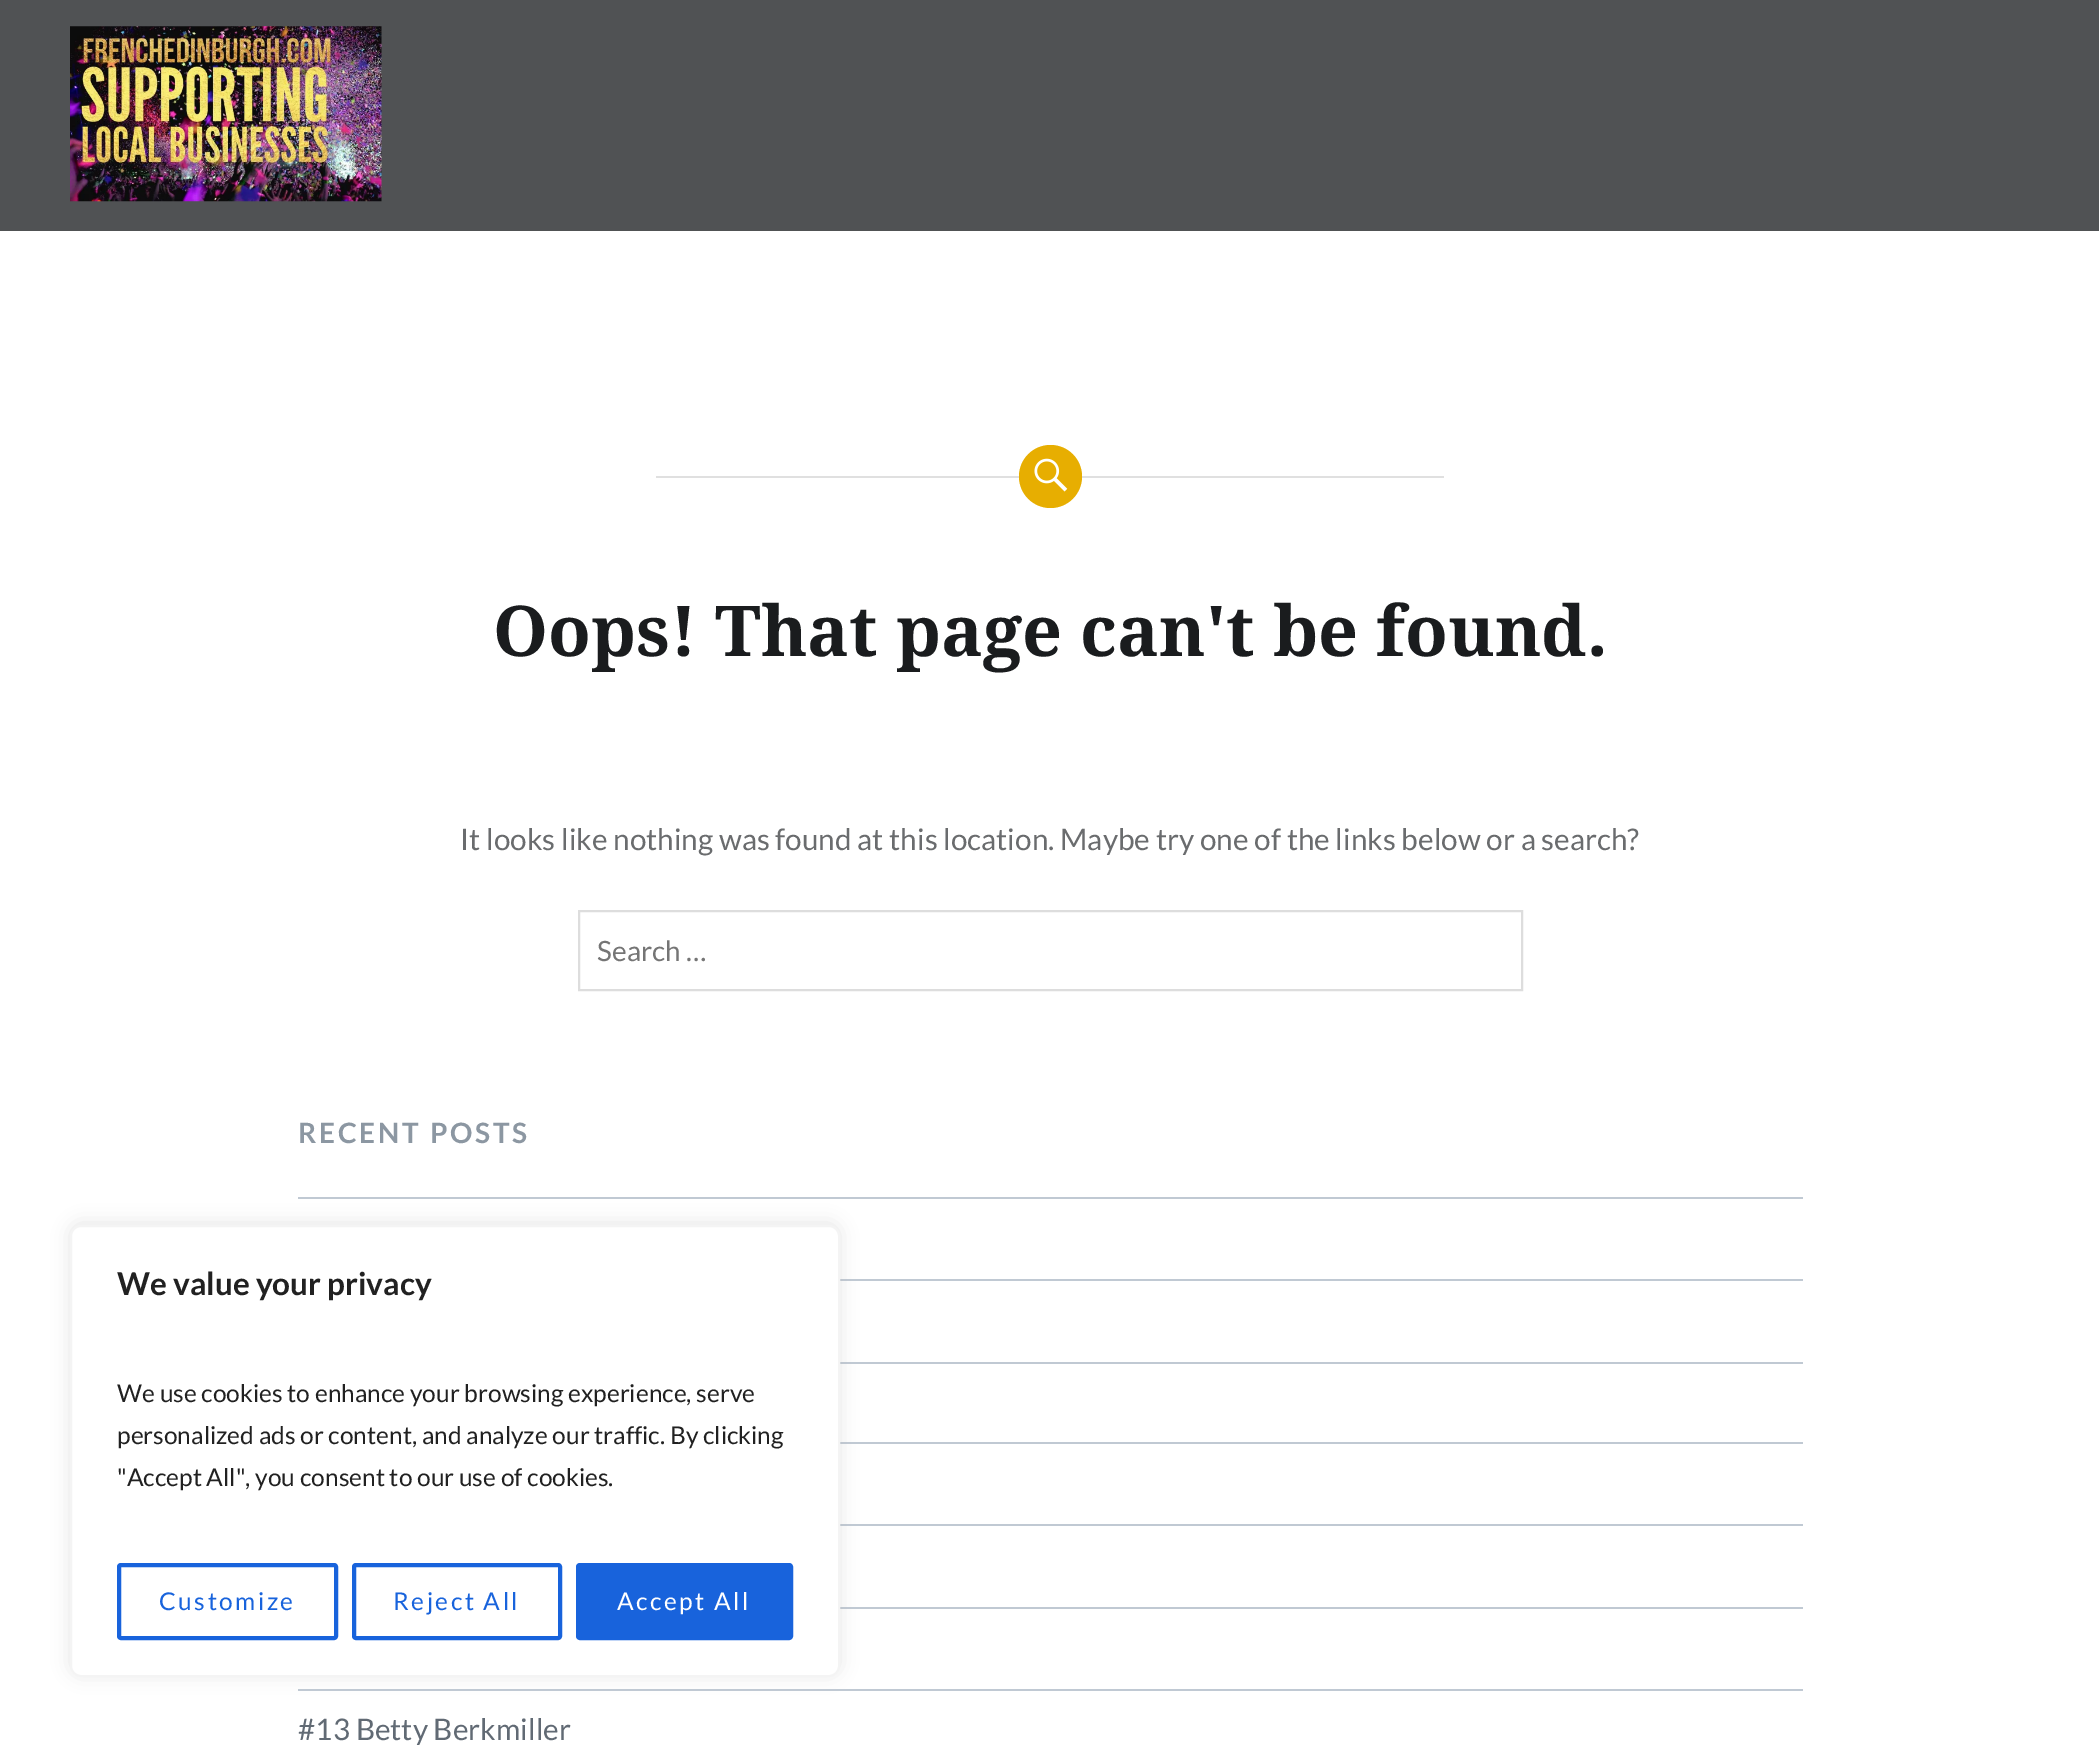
%!PS-Adobe-3.0
%%BoundingBox: 0 0 2099 1746
%%LanguageLevel: 3
%%Pages: 1
%%EndComments
%%BeginProlog
/setink { dup -16 bitshift 255 div exch dup -8 bitshift 255 and 255 div exch 255 and 255 div setrgbcolor } def
/usefont { [ exch dup neg 0 0 3 -1 roll 0 0 ] selectfont } def
/setalpha { dup .setfillconstantalpha .setstrokeconstantalpha } def
/disc { newpath 0 360 arc closepath } def
/rrect { 5 dict begin { /r /h /w /y /x } { exch def } forall
  x r add y moveto x w add y 2 copy h add r arct x w add y h add x 1 index r arct
  x y h add x y r arct x y 2 copy exch w add exch r arct closepath end } def
/softshadow { 12 dict begin { /a /b /q /h /w /y /x } { exch def } forall gsave /was 0 def
  9 -2 -9 { dup b mul 4 div /e exch def 1 sub .425 mul 2.718 exch exp 1 add a .99 .min exch div /now exch def
    1 1 now sub 1 was sub div sub setalpha /was now def
    w h .min e 2 mul add 0 gt { x e sub y e sub w e 2 mul add h e 2 mul add
      q e add b .6 mul add w h .min 2 div e add .min 0 .max rrect fill } if } for grestore end } def
/drawimage { 5 dict begin { /h /w /y /x /name } { exch def } forall
  gsave x y translate w h scale
  w h 8 [w 0 0 h 0 0] name (r) file false 3 colorimage grestore end } def
%%EndProlog
%%BeginSetup
<< /PageSize [2099 1746] /PageUsesTransparency true >> setpagedevice
%%EndSetup
%%Page: 1 1
0 .pushpdf14devicefilter
0 1746 translate 1 -1 scale
4 setmiterlimit
16#FFFFFF setink
0 0 2099 1746 rectfill
16#505254 setink
0 0 2099 231 rectfill
(img1.raw) 70 26 312 176 drawimage
16#E0E0E0 setink
656 476 788 2 rectfill
16#E7AE01 setink
1050.5 476.5 31.5 disc fill
(img2.raw) 1034 458 34 34 drawimage
/NotoSerif-Bold 70 usefont
16#1A1C1E setink
493 656 moveto (Oops! That page can't be found.) show
/Lato-Regular 29.75 usefont
16#6A6C6E setink
460 850 moveto (It looks like nothing was found at this location. Maybe try one of the links below or a search?) show
16#DDDDDD setink
2 setlinewidth
579 911 943 79 rectstroke
/Lato-Regular 28 usefont
16#757575 setink
597 961 moveto (Search …) show
/Lato-Bold 28 usefont
16#8C97A2 setink
298 1143 moveto 2.75 0 (RECENT POSTS) ashow
[
    [298 1197 1505 2 16#C0C9D3]
    [840 1279 963 2 16#C0C9D3]
    [840 1362 963 2 16#C0C9D3]
    [840 1442 963 2 16#C0C9D3]
    [840 1524 963 2 16#C0C9D3]
    [840 1607 963 2 16#C0C9D3]
    [298 1689 1505 2 16#C0C9D3]
] { aload pop setink rectfill } forall
/Lato-Regular 29.75 usefont
16#616A74 setink
298 1740 moveto (#13 Betty Berkmiller) show
16#ACABAB setink
70 1223 770 452 11 9 0.3 softshadow
16#FFFFFF setink
71 1226 768 450 10 rrect gsave fill grestore
16#F4F4F4 setink
stroke
/Lato-Bold 31.5 usefont
16#212121 setink
117 1295 moveto (We value your privacy) show
/Lato-Regular 24.5 usefont
[
    [(We use cookies to enhance your browsing experience, serve) 117 1402]
    [(personalized ads or content, and analyze our traffic. By clicking) 117 1444]
    [("Accept All", you consent to our use of cookies.) 117 1486]
] { aload pop moveto show } forall
16#1863DC setink
4 setlinewidth
119 1565 217 73 2 rrect stroke
159 1610 moveto 2.5 0 (Customize) ashow
354 1565 206 73 2 rrect stroke
393 1610 moveto 2.5 0 (Reject All) ashow
578 1565 213 73 2 rrect gsave fill grestore
stroke
16#FFFFFF setink
617 1610 moveto 2.5 0 (Accept All) ashow
.poppdf14devicefilter showpage
%%EOF
